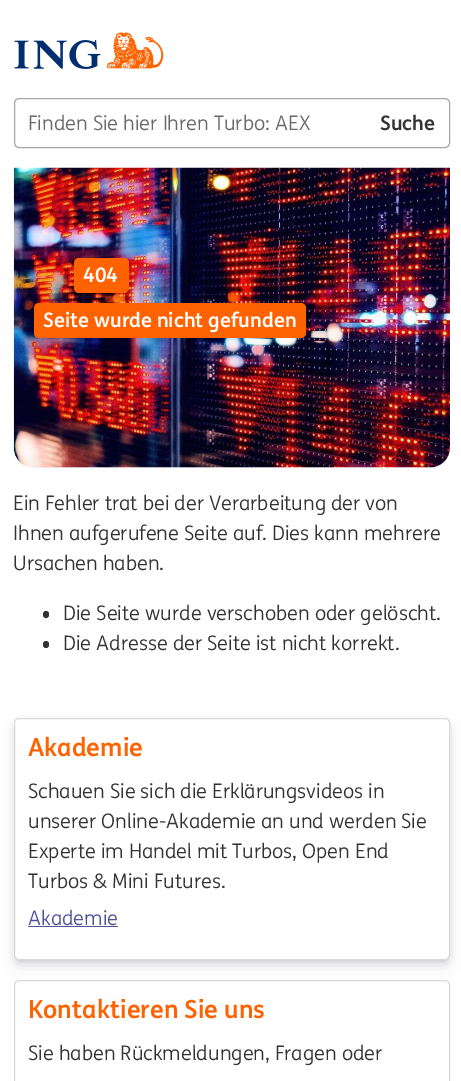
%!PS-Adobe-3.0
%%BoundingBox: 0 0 461 1081
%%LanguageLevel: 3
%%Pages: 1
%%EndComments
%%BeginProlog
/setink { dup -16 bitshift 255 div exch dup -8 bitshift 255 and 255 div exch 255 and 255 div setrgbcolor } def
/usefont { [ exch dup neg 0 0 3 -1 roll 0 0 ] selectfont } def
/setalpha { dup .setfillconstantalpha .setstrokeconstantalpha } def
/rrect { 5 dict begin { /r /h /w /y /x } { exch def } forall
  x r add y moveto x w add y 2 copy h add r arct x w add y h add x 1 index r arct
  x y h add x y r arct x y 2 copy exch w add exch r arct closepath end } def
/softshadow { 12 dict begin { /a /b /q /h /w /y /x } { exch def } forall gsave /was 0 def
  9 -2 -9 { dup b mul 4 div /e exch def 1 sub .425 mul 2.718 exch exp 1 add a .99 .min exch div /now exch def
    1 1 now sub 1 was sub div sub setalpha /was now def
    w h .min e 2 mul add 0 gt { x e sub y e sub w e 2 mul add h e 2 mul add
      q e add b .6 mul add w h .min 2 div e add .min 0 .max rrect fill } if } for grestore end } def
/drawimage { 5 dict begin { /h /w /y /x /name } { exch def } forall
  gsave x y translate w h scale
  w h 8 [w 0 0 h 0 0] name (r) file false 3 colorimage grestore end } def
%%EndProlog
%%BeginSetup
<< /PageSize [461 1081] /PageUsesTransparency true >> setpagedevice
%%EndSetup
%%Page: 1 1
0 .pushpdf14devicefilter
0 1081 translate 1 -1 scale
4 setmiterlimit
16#FFFFFF setink
0 0 461 1081 rectfill
(img1.raw) 14 32 150 37 drawimage
16#A8A8A8 setink
14.5 98.5 435 49 4.5 rrect stroke
/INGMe-Regular 20 usefont
16#696969 setink
28 130 moveto (Finden Sie hier Ihren Turbo: AEX) show
/INGMe-Bold 20 usefont
16#333333 setink
380 130 moveto (Suche) show
16#F0F0F0 setink
14 168 moveto 450 168 lineto 450 448 lineto 450 459 441 468 430 468 curveto 34 468 lineto 23 468 14 459 14 448 curveto closepath fill
(img2.raw) 13 167 437 301 drawimage
16#FF6200 setink
74 258 55 35 5 rrect fill
16#FFFFFF setink
83 282 moveto (404) show
16#FF6200 setink
34 303 272 35 5 rrect fill
16#FFFFFF setink
43 327 moveto (Seite wurde nicht gefunden) show
/INGMe-Regular 20 usefont
16#333333 setink
[
    [(Ein Fehler trat bei der Verarbeitung der von) 13 510]
    [(Ihnen aufgerufene Seite auf. Dies kann mehrere) 13 540]
    [(Ursachen haben.) 13 570]
] { aload pop moveto show } forall
43 611 6 7 3 rrect fill
63 620 moveto (Die Seite wurde verschoben oder gelöscht.) show
43 641 6 7 3 rrect fill
63 650 moveto (Die Adresse der Seite ist nicht korrekt.) show
16#000000 setink
18 725 428 235 1 4.5 0.2 softshadow
16#32325D setink
16 728 432 237 2.5 7.5 0.12 softshadow
16#FFFFFF setink
14.5 718.5 435 241 4.5 rrect gsave fill grestore
16#D9D9D9 setink
stroke
/INGMe-Bold 25 usefont
16#FF6200 setink
28 756 moveto (Akademie) show
/INGMe-Regular 20 usefont
16#333333 setink
[
    [(Schauen Sie sich die Erklärungsvideos in) 28 798]
    [(unserer Online-Akademie an und werden Sie) 28 828]
    [(Experte im Handel mit Turbos, Open End) 28 858]
    [(Turbos & Mini Futures.) 28 888]
] { aload pop moveto show } forall
16#525199 setink
28 925 moveto (Akademie) show
28 926 90 1 rectfill
16#D9D9D9 setink
14.5 980.5 435 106 4.5 rrect stroke
/INGMe-Bold 25 usefont
16#FF6200 setink
28 1018 moveto (Kontaktieren Sie uns) show
/INGMe-Regular 20 usefont
16#333333 setink
28 1060 moveto (Sie haben Rückmeldungen, Fragen oder) show
.poppdf14devicefilter showpage
%%EOF
